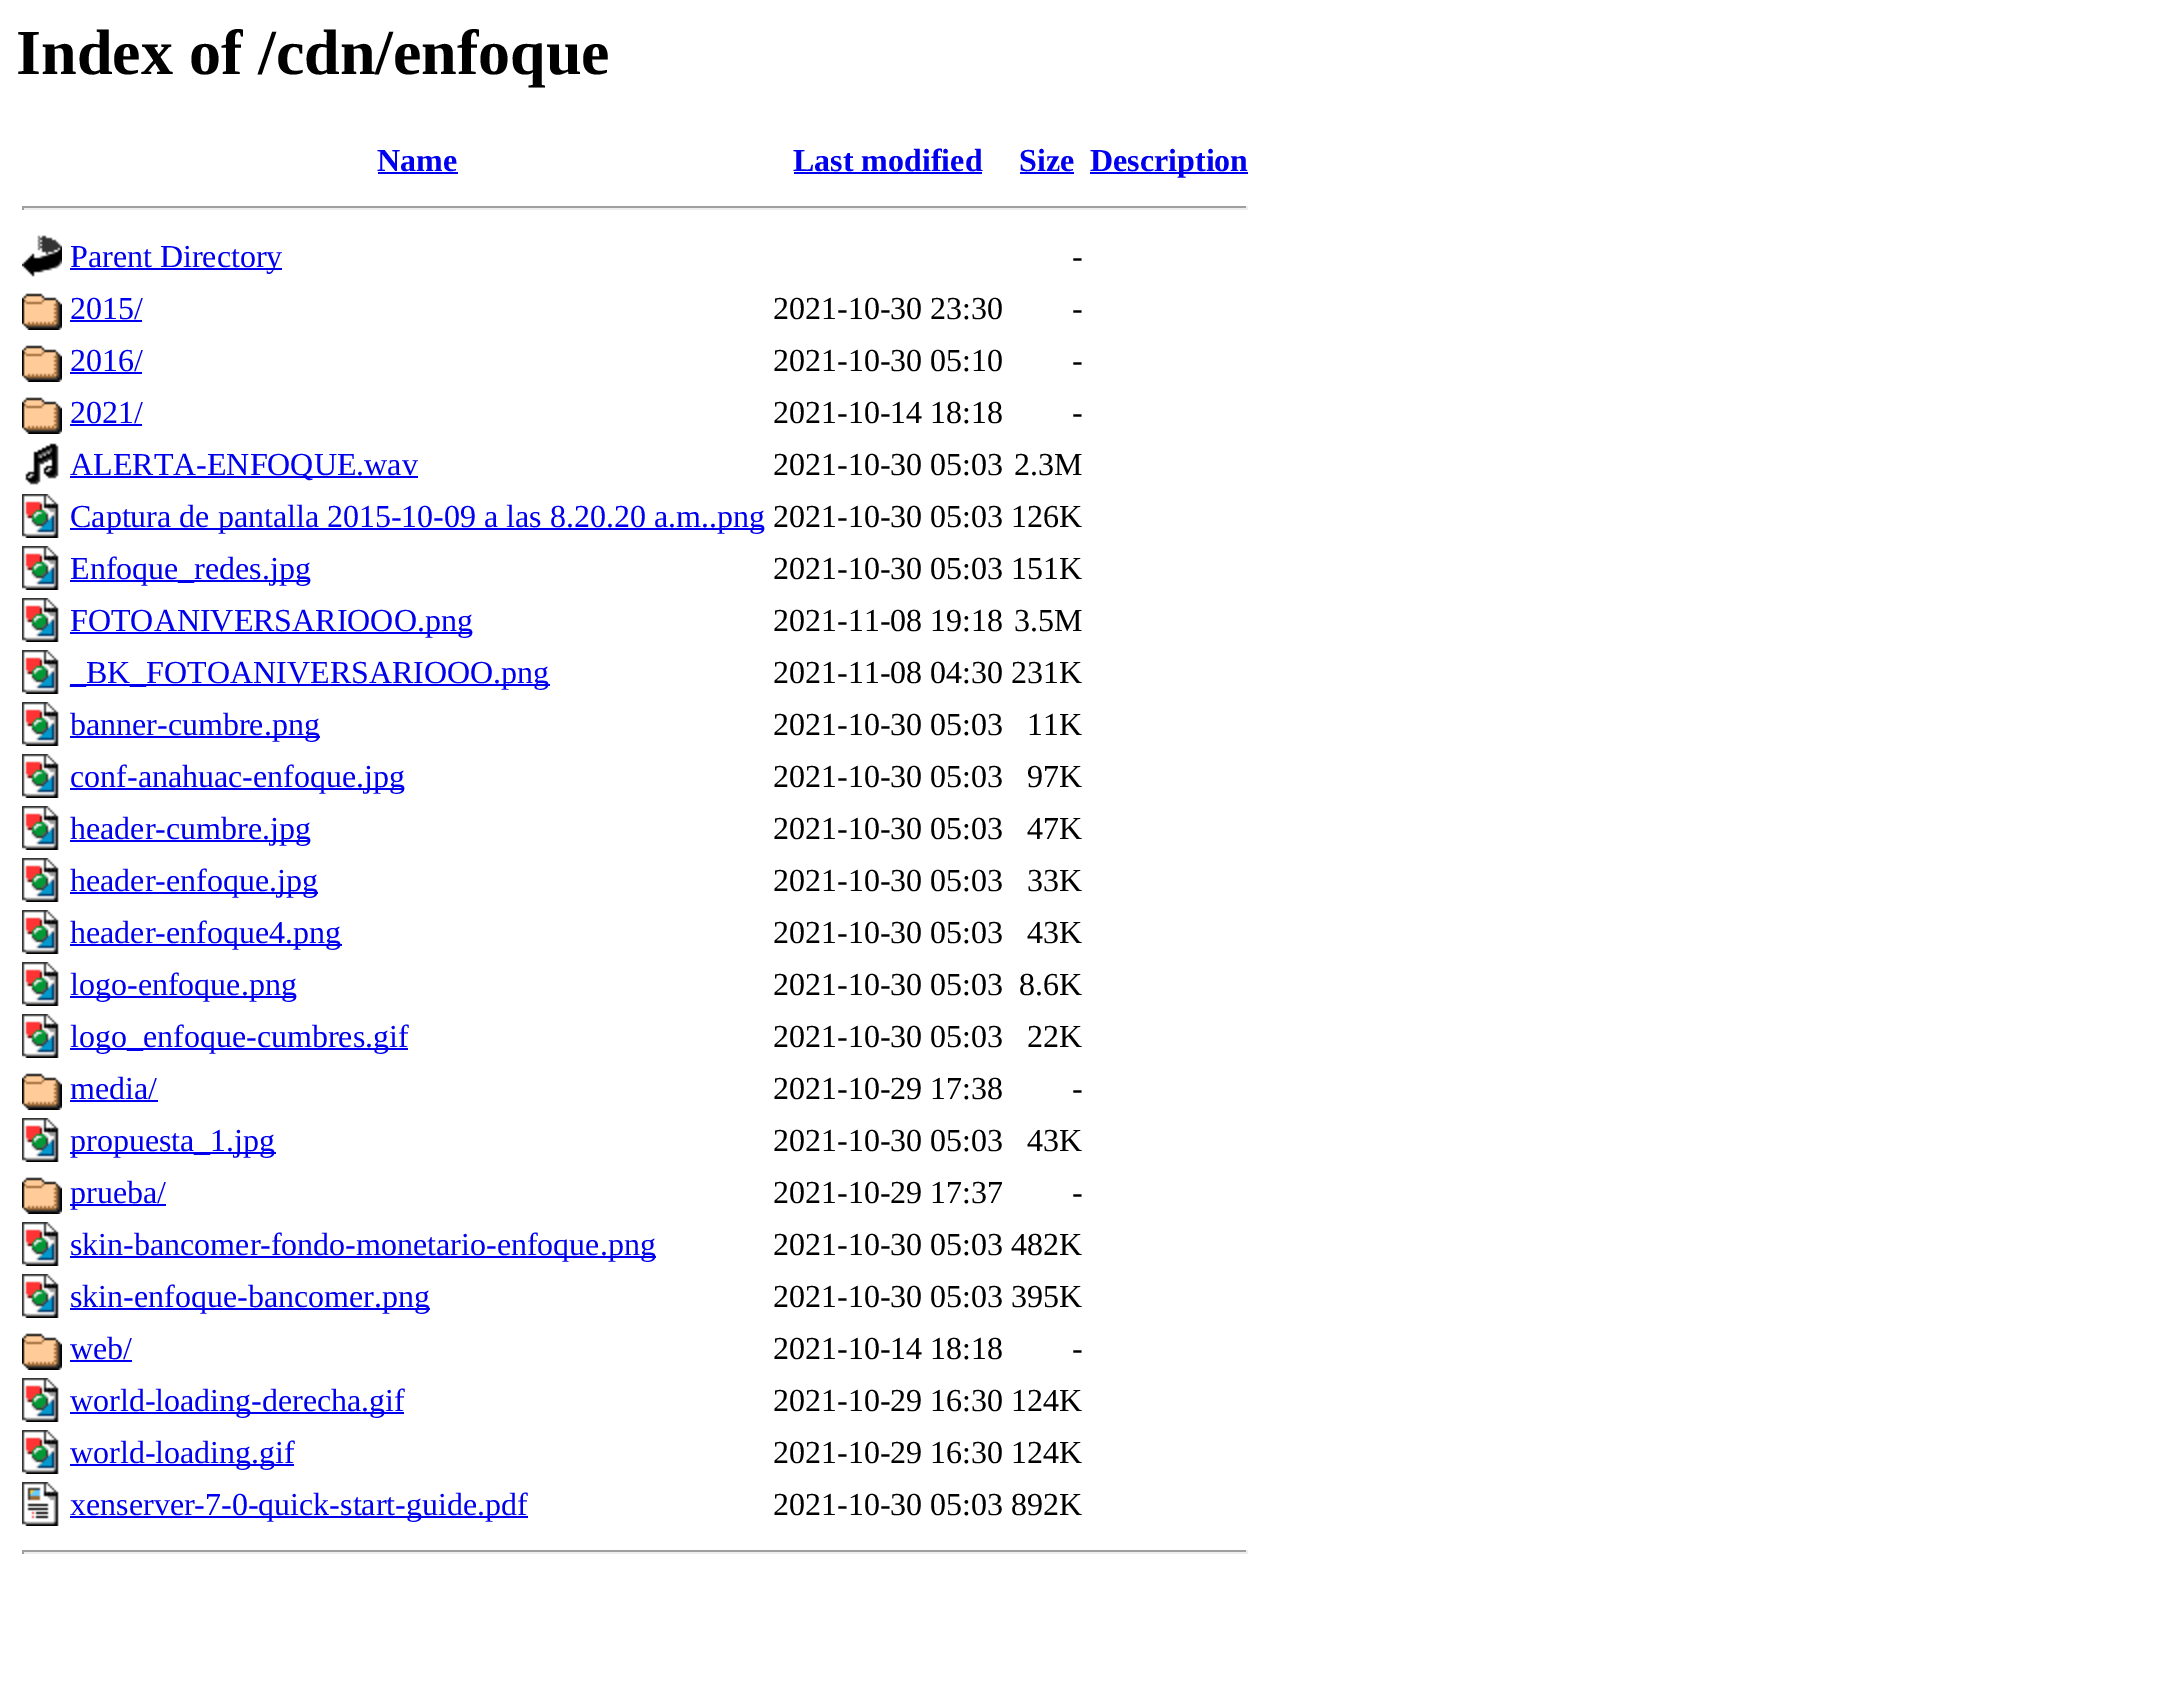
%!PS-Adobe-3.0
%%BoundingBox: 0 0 2159 1681
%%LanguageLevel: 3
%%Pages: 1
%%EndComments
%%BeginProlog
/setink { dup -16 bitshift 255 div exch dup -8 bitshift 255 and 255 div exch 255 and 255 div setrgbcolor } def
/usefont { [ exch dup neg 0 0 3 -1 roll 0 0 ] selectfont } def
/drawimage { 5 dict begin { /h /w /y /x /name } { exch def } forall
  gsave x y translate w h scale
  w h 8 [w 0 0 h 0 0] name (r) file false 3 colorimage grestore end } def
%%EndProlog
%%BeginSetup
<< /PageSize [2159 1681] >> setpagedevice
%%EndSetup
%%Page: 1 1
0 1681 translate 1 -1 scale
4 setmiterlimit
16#FFFFFF setink
0 0 2159 1681 rectfill
/LiberationSerif-Bold 64 usefont
16#000000 setink
16 74 moveto (Index of /cdn/enfoque) show
/LiberationSerif-Bold 32 usefont
16#0000EE setink
377 171 moveto (Name) show
378 172 80 2 rectfill
793 171 moveto (Last modified) show
794 172 188 2 rectfill
1019 171 moveto (Size) show
1020 172 54 2 rectfill
1090 172 158 2 rectfill
1090 171 moveto (Description) show
[
    [22 206 1226 2 16#9F9F9F]
    [1246 206 2 4 16#EEEEEE]
    [22 208 1226 2 16#EEEEEE]
    [22 206 2 4 16#9F9F9F]
] { aload pop setink rectfill } forall
(img1.raw) 22 235 40 42 drawimage
16#0000EE setink
70 268 212 2 rectfill
/LiberationSerif-Regular 32 usefont
70 267 moveto (Parent Directory) show
16#000000 setink
1072 267 moveto (-) show
(img2.raw) 22 293 40 37 drawimage
16#0000EE setink
70 319 moveto (2015/) show
70 320 72 2 rectfill
16#000000 setink
773 319 moveto (2021-10-30 23:30) show
1072 319 moveto (-) show
(img2.raw) 22 345 40 37 drawimage
16#0000EE setink
70 371 moveto (2016/) show
70 372 72 2 rectfill
16#000000 setink
773 371 moveto (2021-10-30 05:10) show
1072 371 moveto (-) show
(img2.raw) 22 397 40 37 drawimage
16#0000EE setink
70 423 moveto (2021/) show
70 424 72 2 rectfill
16#000000 setink
773 423 moveto (2021-10-14 18:18) show
1072 423 moveto (-) show
(img3.raw) 25 443 34 42 drawimage
16#0000EE setink
70 476 348 2 rectfill
70 475 moveto (ALERTA-ENFOQUE.wav) show
16#000000 setink
773 475 moveto (2021-10-30 05:03) show
1014 475 moveto (2.3M) show
(img4.raw) 22 494 37 44 drawimage
16#0000EE setink
70 528 694 2 rectfill
70 527 moveto (Captura de pantalla 2015-10-09 a las 8.20.20 a.m..png) show
16#000000 setink
773 527 moveto (2021-10-30 05:03 126K) show
(img4.raw) 22 546 37 44 drawimage
16#0000EE setink
70 580 240 2 rectfill
70 579 moveto (Enfoque_redes.jpg) show
16#000000 setink
773 579 moveto (2021-10-30 05:03 151K) show
(img4.raw) 22 598 37 44 drawimage
16#0000EE setink
70 632 402 2 rectfill
70 631 moveto (FOTOANIVERSARIOOO.png) show
16#000000 setink
773 631 moveto (2021-11-08 19:18) show
1014 631 moveto (3.5M) show
(img4.raw) 22 650 37 44 drawimage
16#0000EE setink
70 684 480 2 rectfill
70 683 moveto (_BK_FOTOANIVERSARIOOO.png) show
16#000000 setink
773 683 moveto (2021-11-08 04:30 231K) show
(img4.raw) 22 702 37 44 drawimage
16#0000EE setink
70 736 250 2 rectfill
70 735 moveto (banner-cumbre.png) show
16#000000 setink
773 735 moveto (2021-10-30 05:03) show
1027 735 moveto (11K) show
(img4.raw) 22 754 37 44 drawimage
16#0000EE setink
70 788 334 2 rectfill
70 787 moveto (conf-anahuac-enfoque.jpg) show
16#000000 setink
773 787 moveto (2021-10-30 05:03) show
1027 787 moveto (97K) show
(img4.raw) 22 806 37 44 drawimage
16#0000EE setink
70 840 240 2 rectfill
70 839 moveto (header-cumbre.jpg) show
16#000000 setink
773 839 moveto (2021-10-30 05:03) show
1027 839 moveto (47K) show
(img4.raw) 22 858 37 44 drawimage
16#0000EE setink
70 892 248 2 rectfill
70 891 moveto (header-enfoque.jpg) show
16#000000 setink
773 891 moveto (2021-10-30 05:03) show
1027 891 moveto (33K) show
(img4.raw) 22 910 37 44 drawimage
16#0000EE setink
70 944 272 2 rectfill
70 943 moveto (header-enfoque4.png) show
16#000000 setink
773 943 moveto (2021-10-30 05:03) show
1027 943 moveto (43K) show
(img4.raw) 22 962 37 44 drawimage
16#0000EE setink
70 996 226 2 rectfill
70 995 moveto (logo-enfoque.png) show
16#000000 setink
773 995 moveto (2021-10-30 05:03) show
1019 995 moveto (8.6K) show
(img4.raw) 22 1014 37 44 drawimage
16#0000EE setink
70 1048 338 2 rectfill
70 1047 moveto (logo_enfoque-cumbres.gif) show
16#000000 setink
773 1047 moveto (2021-10-30 05:03) show
1027 1047 moveto (22K) show
(img2.raw) 22 1073 40 37 drawimage
16#0000EE setink
70 1099 moveto (media/) show
70 1100 88 2 rectfill
16#000000 setink
773 1099 moveto (2021-10-29 17:38) show
1072 1099 moveto (-) show
(img4.raw) 22 1118 37 44 drawimage
16#0000EE setink
70 1152 206 2 rectfill
70 1151 moveto (propuesta_1.jpg) show
16#000000 setink
773 1151 moveto (2021-10-30 05:03) show
1027 1151 moveto (43K) show
(img2.raw) 22 1177 40 37 drawimage
16#0000EE setink
70 1204 96 2 rectfill
70 1203 moveto (prueba/) show
16#000000 setink
773 1203 moveto (2021-10-29 17:37) show
1072 1203 moveto (-) show
(img4.raw) 22 1222 37 44 drawimage
16#0000EE setink
70 1256 586 2 rectfill
70 1255 moveto (skin-bancomer-fondo-monetario-enfoque.png) show
16#000000 setink
773 1255 moveto (2021-10-30 05:03 482K) show
(img4.raw) 22 1274 37 44 drawimage
16#0000EE setink
70 1308 360 2 rectfill
70 1307 moveto (skin-enfoque-bancomer.png) show
16#000000 setink
773 1307 moveto (2021-10-30 05:03 395K) show
(img2.raw) 22 1333 40 37 drawimage
16#0000EE setink
70 1359 moveto (web/) show
70 1360 62 2 rectfill
16#000000 setink
773 1359 moveto (2021-10-14 18:18) show
1072 1359 moveto (-) show
(img4.raw) 22 1378 37 44 drawimage
16#0000EE setink
70 1412 334 2 rectfill
70 1411 moveto (world-loading-derecha.gif) show
16#000000 setink
773 1411 moveto (2021-10-29 16:30 124K) show
(img4.raw) 22 1430 37 44 drawimage
16#0000EE setink
70 1464 224 2 rectfill
70 1463 moveto (world-loading.gif) show
16#000000 setink
773 1463 moveto (2021-10-29 16:30 124K) show
(img5.raw) 22 1482 37 44 drawimage
16#0000EE setink
70 1516 458 2 rectfill
70 1515 moveto (xenserver-7-0-quick-start-guide.pdf) show
16#000000 setink
773 1515 moveto (2021-10-30 05:03 892K) show
[
    [22 1550 1226 2 16#9F9F9F]
    [1246 1550 2 4 16#EEEEEE]
    [22 1552 1226 2 16#EEEEEE]
    [22 1550 2 4 16#9F9F9F]
] { aload pop setink rectfill } forall
showpage
%%EOF
